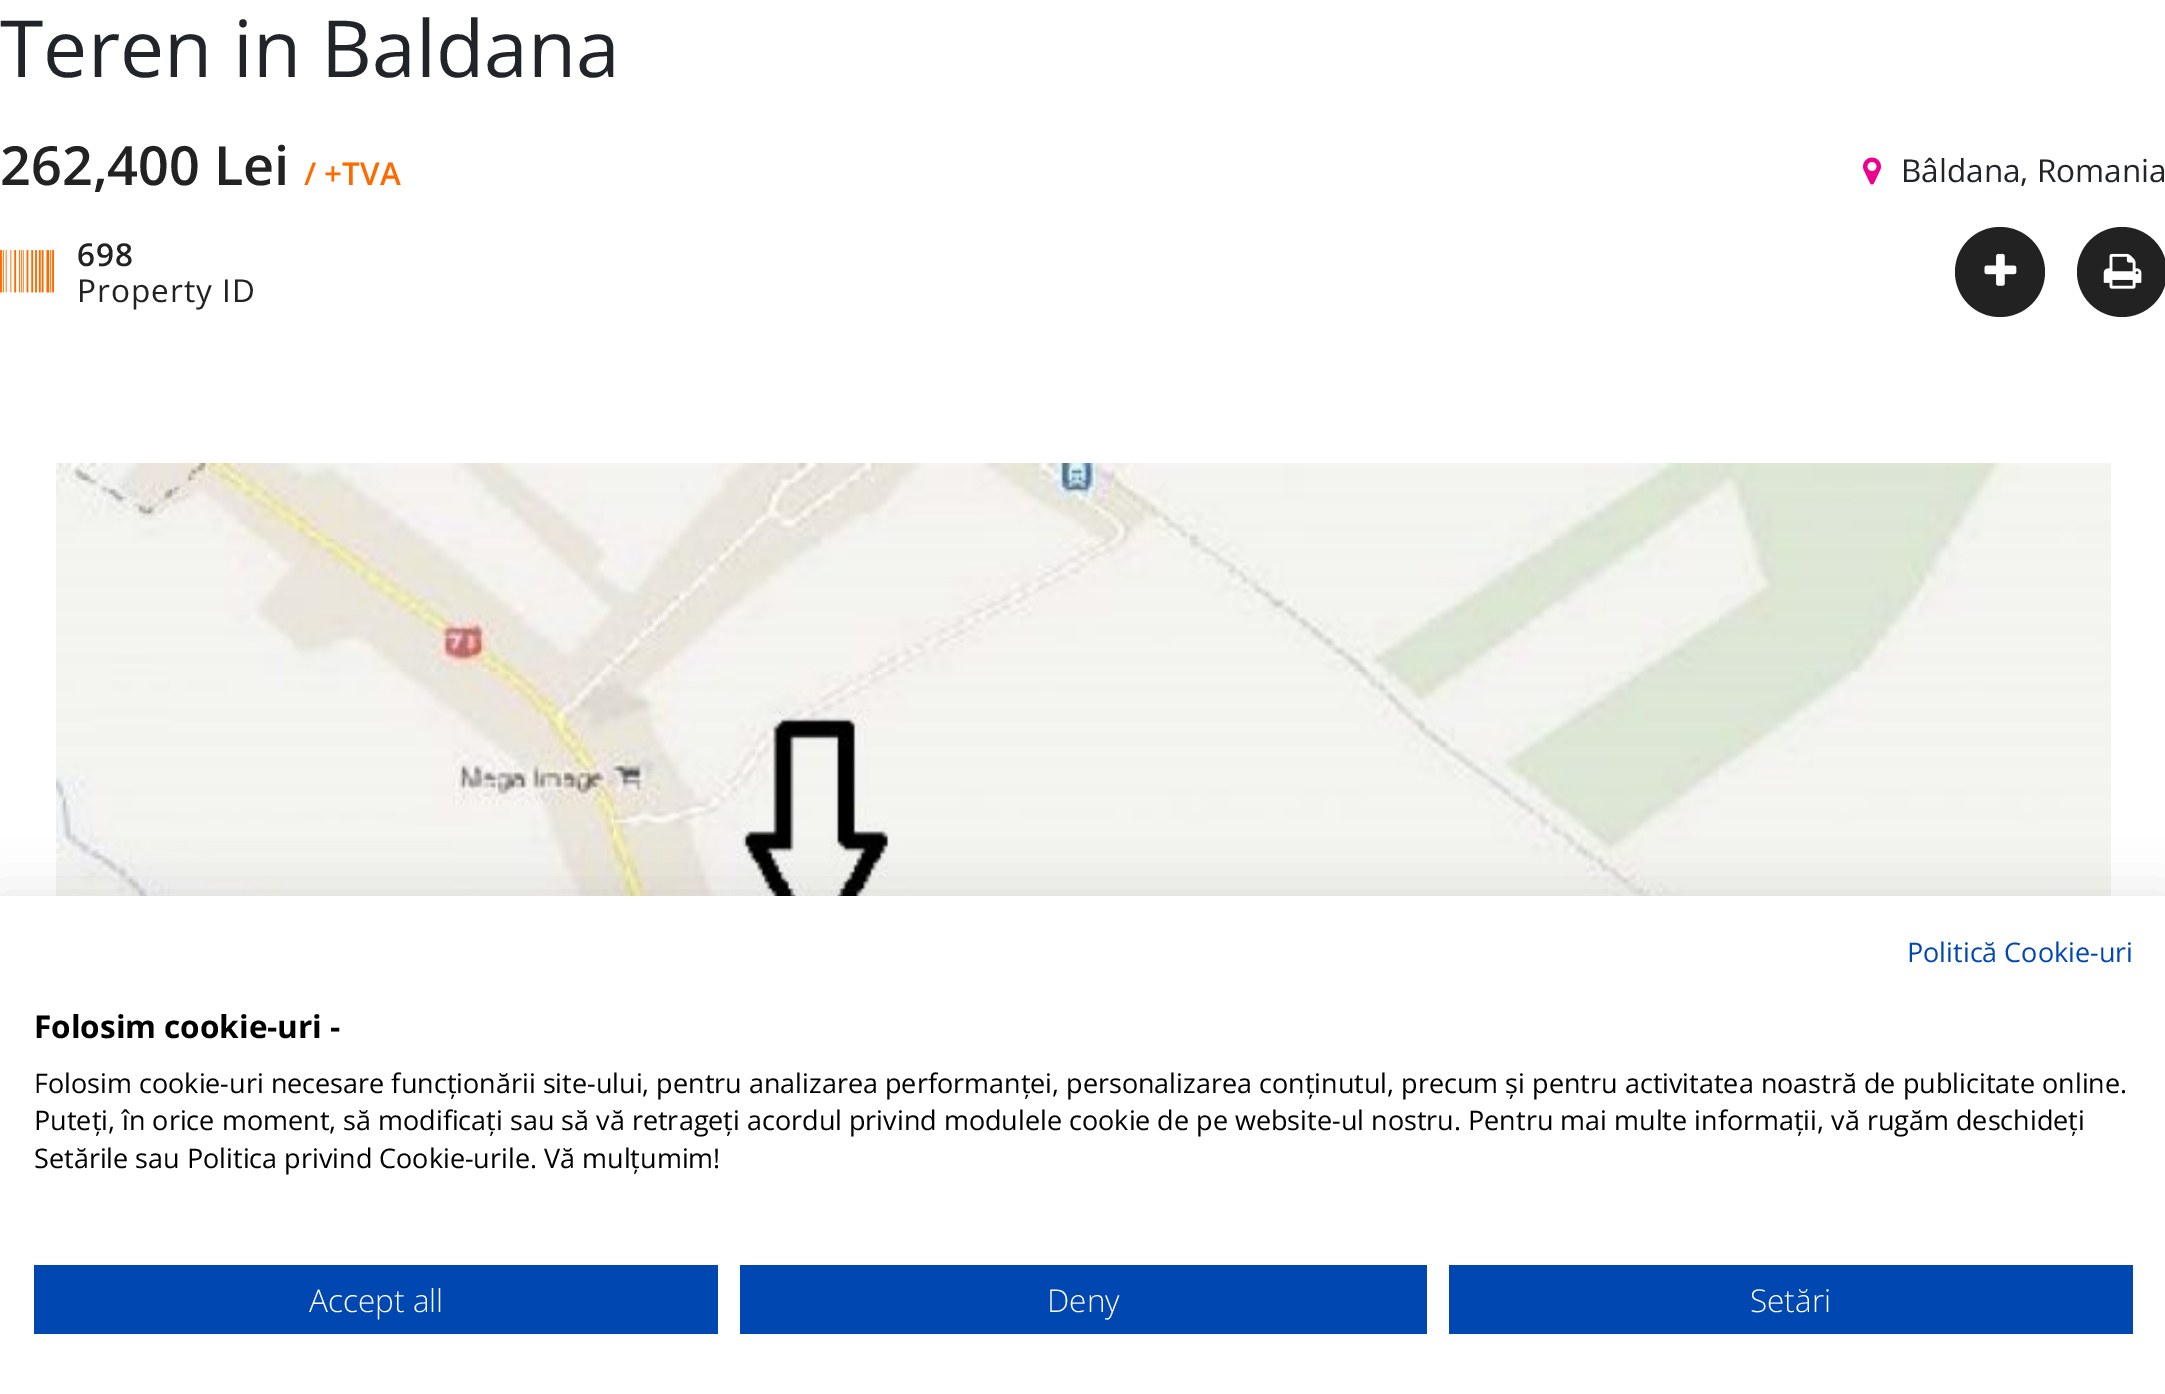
%!PS-Adobe-3.0
%%BoundingBox: 0 0 2165 1394
%%LanguageLevel: 3
%%Pages: 1
%%EndComments
%%BeginProlog
/setink { dup -16 bitshift 255 div exch dup -8 bitshift 255 and 255 div exch 255 and 255 div setrgbcolor } def
/usefont { [ exch dup neg 0 0 3 -1 roll 0 0 ] selectfont } def
/setalpha { dup .setfillconstantalpha .setstrokeconstantalpha } def
/disc { newpath 0 360 arc closepath } def
/rrect { 5 dict begin { /r /h /w /y /x } { exch def } forall
  x r add y moveto x w add y 2 copy h add r arct x w add y h add x 1 index r arct
  x y h add x y r arct x y 2 copy exch w add exch r arct closepath end } def
/softshadow { 12 dict begin { /a /b /q /h /w /y /x } { exch def } forall gsave /was 0 def
  9 -2 -9 { dup b mul 4 div /e exch def 1 sub .425 mul 2.718 exch exp 1 add a .99 .min exch div /now exch def
    1 1 now sub 1 was sub div sub setalpha /was now def
    w h .min e 2 mul add 0 gt { x e sub y e sub w e 2 mul add h e 2 mul add
      q e add b .6 mul add w h .min 2 div e add .min 0 .max rrect fill } if } for grestore end } def
/drawimage { 5 dict begin { /h /w /y /x /name } { exch def } forall
  gsave x y translate w h scale
  w h 8 [w 0 0 h 0 0] name (r) file false 3 colorimage grestore end } def
%%EndProlog
%%BeginSetup
<< /PageSize [2165 1394] /PageUsesTransparency true >> setpagedevice
%%EndSetup
%%Page: 1 1
0 .pushpdf14devicefilter
0 1394 translate 1 -1 scale
4 setmiterlimit
16#FFFFFF setink
0 0 2165 1394 rectfill
/OpenSans-Regular 78.75 usefont
16#212529 setink
0 77 moveto (Teren in Baldana) show
/OpenSans-SemiBold 54 usefont
16#222222 setink
0 185 moveto (262,400 Lei) show
/OpenSans-SemiBold 31.5 usefont
16#FE6A00 setink
304 185 moveto (/ +TVA) show
(img1.raw) 1863 157 18 28 drawimage
/OpenSans-Regular 31.5 usefont
16#212529 setink
1901 182 moveto (Bâldana, Romania) show
(img2.raw) 0 250 54 43 drawimage
/OpenSans-SemiBold 31.5 usefont
16#222222 setink
77 266 moveto 1 0 (698) ashow
/OpenSans-Regular 31.5 usefont
77 302 moveto 1 0 (Property ID) ashow
2000 272 45 disc fill
(img3.raw) 1984 253 33 33 drawimage
2122 272 45 disc fill
(img4.raw) 2103 253 39 36 drawimage
(img5.raw) 56 463 2055 433 drawimage
16#000000 setink
0 896 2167 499 0 27 0.1 softshadow
16#FFFFFF setink
0 896 2165 498 rectfill
/OpenSans-Regular 27 usefont
16#0047B2 setink
1907 962 moveto (Politică Cookie-uri) show
/OpenSans-Bold 31.5 usefont
16#000000 setink
34 1038 moveto (Folosim cookie-uri -) show
/OpenSans-Regular 27 usefont
[
    [(Folosim cookie-uri necesare funcționării site-ului, pentru analizarea performanței, personalizarea conținutul, precum și pentru activitatea noastră de publicitate online.) 34 1093]
    [(Puteți, în orice moment, să modificați sau să vă retrageți acordul privind modulele cookie de pe website-ul nostru. Pentru mai multe informații, vă rugăm deschideți) 34 1130]
    [(Setările sau Politica privind Cookie-urile. Vă mulțumim!) 34 1168]
] { aload pop moveto show } forall
16#0047B2 setink
34 1265 684 69 rectfill
/OpenSans-Light 31.5 usefont
16#FFFFFF setink
309 1312 moveto (Accept all) show
16#0047B2 setink
740 1265 687 69 rectfill
16#FFFFFF setink
1047 1312 moveto (Deny) show
16#0047B2 setink
1449 1265 684 69 rectfill
16#FFFFFF setink
1750 1312 moveto (Setări) show
.poppdf14devicefilter showpage
%%EOF
